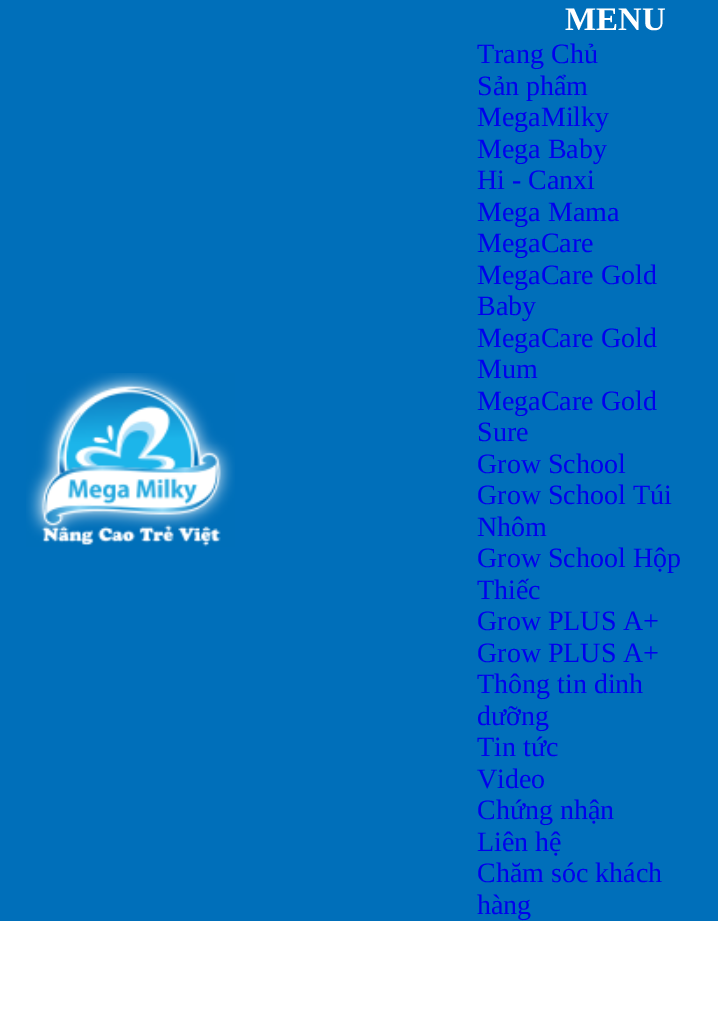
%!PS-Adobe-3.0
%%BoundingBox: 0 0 718 1009
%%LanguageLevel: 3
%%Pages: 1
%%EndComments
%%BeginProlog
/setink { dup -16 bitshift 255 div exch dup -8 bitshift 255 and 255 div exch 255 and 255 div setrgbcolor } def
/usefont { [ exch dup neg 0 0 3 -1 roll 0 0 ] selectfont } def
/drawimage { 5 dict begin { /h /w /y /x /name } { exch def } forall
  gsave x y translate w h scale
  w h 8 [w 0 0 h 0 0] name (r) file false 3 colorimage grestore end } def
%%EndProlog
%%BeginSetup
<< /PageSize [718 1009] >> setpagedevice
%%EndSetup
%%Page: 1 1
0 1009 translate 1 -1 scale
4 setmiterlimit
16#FFFFFF setink
0 0 718 1009 rectfill
16#006FBA setink
0 0 718 921 rectfill
(img1.raw) 26 373 209 174 drawimage
/LiberationSerif-Bold 33 usefont
16#FFFFFF setink
565 30 moveto (MENU) show
/LiberationSerif-Regular 28 usefont
16#0000EE setink
[
    [(Trang Chủ) 477 63]
    [(Sản phẩm) 477 95]
    [(MegaMilky) 477 126]
    [(Mega Baby) 477 158]
    [(Hi - Canxi) 477 189]
    [(Mega Mama) 477 221]
    [(MegaCare) 477 252]
    [(MegaCare Gold) 477 284]
    [(Baby) 477 315]
    [(MegaCare Gold) 477 347]
    [(Mum) 477 378]
    [(MegaCare Gold) 477 410]
    [(Sure) 477 441]
    [(Grow School) 477 473]
    [(Grow School Túi) 477 504]
    [(Nhôm) 477 536]
    [(Grow School Hộp) 477 567]
    [(Thiếc) 477 599]
    [(Grow PLUS A+) 477 630]
    [(Grow PLUS A+) 477 662]
    [(Thông tin dinh) 477 693]
    [(dưỡng) 477 725]
    [(Tin tức) 477 756]
    [(Video) 477 788]
    [(Chứng nhận) 477 819]
    [(Liên hệ) 477 851]
    [(Chăm sóc khách) 477 882]
    [(hàng) 477 914]
] { aload pop moveto show } forall
showpage
%%EOF
